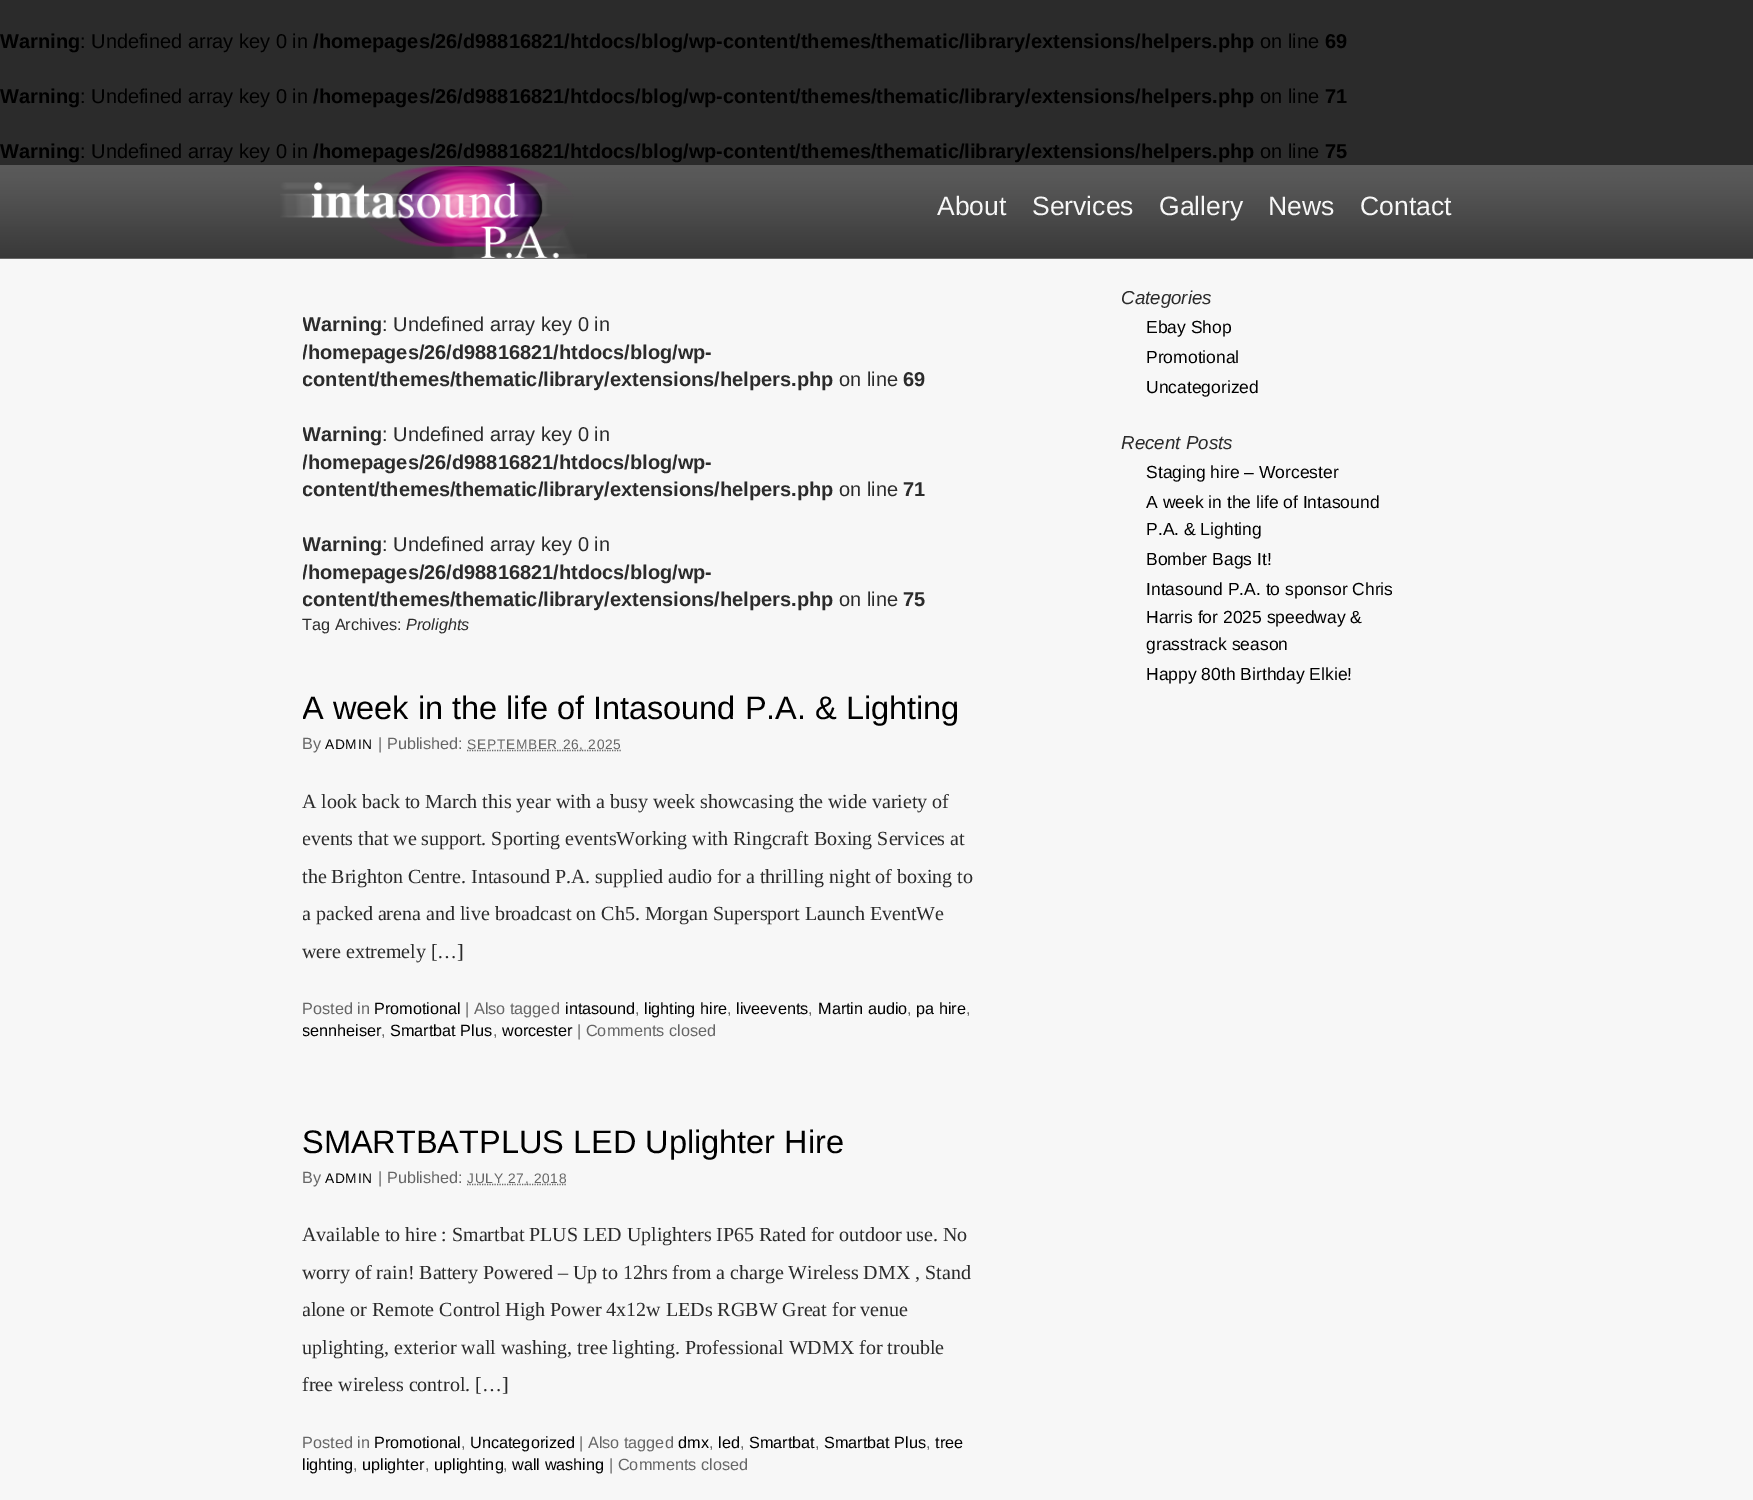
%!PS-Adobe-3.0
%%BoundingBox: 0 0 1753 1500
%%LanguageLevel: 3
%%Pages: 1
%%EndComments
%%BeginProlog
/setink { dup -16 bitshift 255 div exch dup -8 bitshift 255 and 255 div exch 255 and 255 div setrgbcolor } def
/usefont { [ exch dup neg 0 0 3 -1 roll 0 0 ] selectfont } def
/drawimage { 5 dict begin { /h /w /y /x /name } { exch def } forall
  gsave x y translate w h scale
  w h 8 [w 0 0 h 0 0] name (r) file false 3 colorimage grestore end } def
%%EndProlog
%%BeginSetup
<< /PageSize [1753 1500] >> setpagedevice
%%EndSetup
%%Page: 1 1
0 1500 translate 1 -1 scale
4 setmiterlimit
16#2B2B2B setink
0 0 1753 1500 rectfill
/LiberationSans-Bold 20 usefont
16#000000 setink
0 48 moveto (Warning) show
/LiberationSans-Regular 20 usefont
80 48 moveto (: Undefined array key 0 in) show
/LiberationSans-Bold 20 usefont
313 48 moveto (/homepages/26/d98816821/htdocs/blog/wp-content/themes/thematic/library/extensions/helpers.php) show
/LiberationSans-Regular 20 usefont
1260 48 moveto (on line) show
/LiberationSans-Bold 20 usefont
1325 48 moveto (69) show
0 103 moveto (Warning) show
/LiberationSans-Regular 20 usefont
80 103 moveto (: Undefined array key 0 in) show
/LiberationSans-Bold 20 usefont
313 103 moveto (/homepages/26/d98816821/htdocs/blog/wp-content/themes/thematic/library/extensions/helpers.php) show
/LiberationSans-Regular 20 usefont
1260 103 moveto (on line) show
/LiberationSans-Bold 20 usefont
1325 103 moveto (71) show
0 158 moveto (Warning) show
/LiberationSans-Regular 20 usefont
80 158 moveto (: Undefined array key 0 in) show
/LiberationSans-Bold 20 usefont
313 158 moveto (/homepages/26/d98816821/htdocs/blog/wp-content/themes/thematic/library/extensions/helpers.php) show
/LiberationSans-Regular 20 usefont
1260 158 moveto (on line) show
/LiberationSans-Bold 20 usefont
1325 158 moveto (75) show
16#F7F7F7 setink
0 258 1753 1242 rectfill
(img1.raw) 0 165 1753 94 drawimage
(img2.raw) 280 166 307 93 drawimage
/LiberationSans-Regular 26.5 usefont
[
    [(About) 937 215]
    [(Services) 1032 215]
    [(Gallery) 1159 215]
    [(News) 1268 215]
    [(Contact) 1360 215]
] { aload pop moveto show } forall
gsave
303 284 675 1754 rectclip
/LiberationSans-Bold 20 usefont
16#2B2B2B setink
302 331 moveto (Warning) show
grestore
/LiberationSans-Regular 20 usefont
16#2B2B2B setink
382 331 moveto (: Undefined array key 0 in) show
gsave
303 284 675 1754 rectclip
/LiberationSans-Bold 20 usefont
302 359 moveto (/homepages/26/d98816821/htdocs/blog/wp-) show
302 386 moveto (content/themes/thematic/library/extensions/helpers.php) show
grestore
839 386 moveto (on line) show
/LiberationSans-Bold 20 usefont
903 386 moveto (69) show
gsave
303 284 675 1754 rectclip
302 441 moveto (Warning) show
grestore
/LiberationSans-Regular 20 usefont
382 441 moveto (: Undefined array key 0 in) show
gsave
303 284 675 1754 rectclip
/LiberationSans-Bold 20 usefont
302 469 moveto (/homepages/26/d98816821/htdocs/blog/wp-) show
302 496 moveto (content/themes/thematic/library/extensions/helpers.php) show
grestore
839 496 moveto (on line) show
/LiberationSans-Bold 20 usefont
903 496 moveto (71) show
gsave
303 284 675 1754 rectclip
302 551 moveto (Warning) show
grestore
/LiberationSans-Regular 20 usefont
382 551 moveto (: Undefined array key 0 in) show
gsave
303 284 675 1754 rectclip
/LiberationSans-Bold 20 usefont
302 579 moveto (/homepages/26/d98816821/htdocs/blog/wp-) show
302 606 moveto (content/themes/thematic/library/extensions/helpers.php) show
grestore
839 606 moveto (on line) show
/LiberationSans-Bold 20 usefont
903 606 moveto (75) show
/LiberationSans-Regular 16.25 usefont
302 630 moveto (Tag Archives:) show
/LiberationSans-Italic 16.25 usefont
406 630 moveto (Prolights) show
gsave
303 284 675 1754 rectclip
/LiberationSans-Regular 32.5 usefont
16#000000 setink
302 719 moveto (A week in the life of Intasound P.A. & Lighting) show
grestore
/LiberationSans-Regular 16.25 usefont
16#666666 setink
302 749 moveto (By) show
/LiberationSans-Regular 13.75 usefont
16#000000 setink
325 749 moveto 0.7 0 (ADMIN) ashow
/LiberationSans-Regular 16.25 usefont
16#666666 setink
378 749 moveto (| Published:) show
1.2 setlinewidth
[1.25 1.25] 0 setdash
467 750.5 moveto 621.5 750.5 lineto stroke
/LiberationSans-Regular 13.75 usefont
467 749 moveto 0.7 0 (SEPTEMBER 26, 2025) ashow
/LiberationSerif-Regular 20 usefont
16#2B2B2B setink
302 808 moveto (A look back to March this year with a busy week showcasing the wide variety of) show
gsave
303 284 675 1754 rectclip
302 845 moveto (events that we support. Sporting eventsWorking with Ringcraft Boxing Services at) show
grestore
302 883 moveto (the Brighton Centre. Intasound P.A. supplied audio for a thrilling night of boxing to) show
gsave
303 284 675 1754 rectclip
302 920 moveto (a packed arena and live broadcast on Ch5. Morgan Supersport Launch EventWe) show
grestore
302 958 moveto (were extremely […]) show
/LiberationSans-Regular 16.25 usefont
16#666666 setink
302 1014 moveto (Posted in) show
16#000000 setink
374 1014 moveto (Promotional) show
16#666666 setink
465 1014 moveto (| Also tagged) show
16#000000 setink
565 1014 moveto (intasound) show
16#666666 setink
635 1014 moveto (,) show
16#000000 setink
644 1014 moveto (lighting hire) show
16#666666 setink
727 1014 moveto (,) show
16#000000 setink
736 1014 moveto (liveevents) show
16#666666 setink
808 1014 moveto (,) show
16#000000 setink
818 1014 moveto (Martin audio) show
16#666666 setink
907 1014 moveto (,) show
16#000000 setink
916 1014 moveto (pa hire) show
16#666666 setink
966 1014 moveto (,) show
gsave
303 284 675 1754 rectclip
16#000000 setink
302 1036 moveto (sennheiser) show
grestore
381 1036 moveto (,) show
16#000000 setink
390 1036 moveto (Smartbat Plus) show
16#666666 setink
493 1036 moveto (,) show
16#000000 setink
502 1036 moveto (worcester) show
16#666666 setink
577 1036 moveto (| Comments closed) show
/LiberationSans-Regular 32.5 usefont
16#000000 setink
302 1153 moveto (SMARTBATPLUS LED Uplighter Hire) show
/LiberationSans-Regular 16.25 usefont
16#666666 setink
302 1183 moveto (By) show
/LiberationSans-Regular 13.75 usefont
16#000000 setink
325 1183 moveto 0.7 0 (ADMIN) ashow
/LiberationSans-Regular 16.25 usefont
16#666666 setink
378 1183 moveto (| Published:) show
467 1184.5 moveto 566.5 1184.5 lineto stroke
/LiberationSans-Regular 13.75 usefont
467 1183 moveto 0.7 0 (JULY 27, 2018) ashow
/LiberationSerif-Regular 20 usefont
16#2B2B2B setink
302 1241 moveto (Available to hire : Smartbat PLUS LED Uplighters IP65 Rated for outdoor use. No) show
302 1279 moveto (worry of rain! Battery Powered – Up to 12hrs from a charge Wireless DMX , Stand) show
gsave
303 284 675 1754 rectclip
302 1316 moveto (alone or Remote Control High Power 4x12w LEDs RGBW Great for venue) show
grestore
302 1354 moveto (uplighting, exterior wall washing, tree lighting. Professional WDMX for trouble) show
302 1391 moveto (free wireless control. […]) show
/LiberationSans-Regular 16.25 usefont
16#666666 setink
302 1448 moveto (Posted in) show
16#000000 setink
374 1448 moveto (Promotional) show
16#666666 setink
461 1448 moveto (,) show
16#000000 setink
470 1448 moveto (Uncategorized) show
16#666666 setink
579 1448 moveto (| Also tagged) show
16#000000 setink
678 1448 moveto (dmx) show
16#666666 setink
709 1448 moveto (,) show
16#000000 setink
718 1448 moveto (led) show
16#666666 setink
740 1448 moveto (,) show
16#000000 setink
749 1448 moveto (Smartbat) show
16#666666 setink
815 1448 moveto (,) show
16#000000 setink
824 1448 moveto (Smartbat Plus) show
16#666666 setink
926 1448 moveto (,) show
16#000000 setink
935 1448 moveto (tree) show
302 1470 moveto (lighting) show
16#666666 setink
353 1470 moveto (,) show
16#000000 setink
362 1470 moveto (uplighter) show
16#666666 setink
425 1470 moveto (,) show
16#000000 setink
434 1470 moveto (uplighting) show
16#666666 setink
503 1470 moveto (,) show
16#000000 setink
512 1470 moveto (wall washing) show
16#666666 setink
609 1470 moveto (| Comments closed) show
/LiberationSans-Italic 18.75 usefont
16#2B2B2B setink
1121 304 moveto (Categories) show
/LiberationSans-Regular 17.5 usefont
16#000000 setink
[
    [(Ebay Shop) 1146 333]
    [(Promotional) 1146 363]
    [(Uncategorized) 1146 393]
] { aload pop moveto show } forall
/LiberationSans-Italic 18.75 usefont
16#2B2B2B setink
1121 449 moveto (Recent Posts) show
/LiberationSans-Regular 17.5 usefont
16#000000 setink
[
    [(Staging hire – Worcester) 1146 478]
    [(A week in the life of Intasound) 1146 508]
    [(P.A. & Lighting) 1146 535]
    [(Bomber Bags It!) 1146 565]
    [(Intasound P.A. to sponsor Chris) 1146 595]
    [(Harris for 2025 speedway &) 1146 623]
    [(grasstrack season) 1146 650]
    [(Happy 80th Birthday Elkie!) 1146 680]
] { aload pop moveto show } forall
showpage
%%EOF
